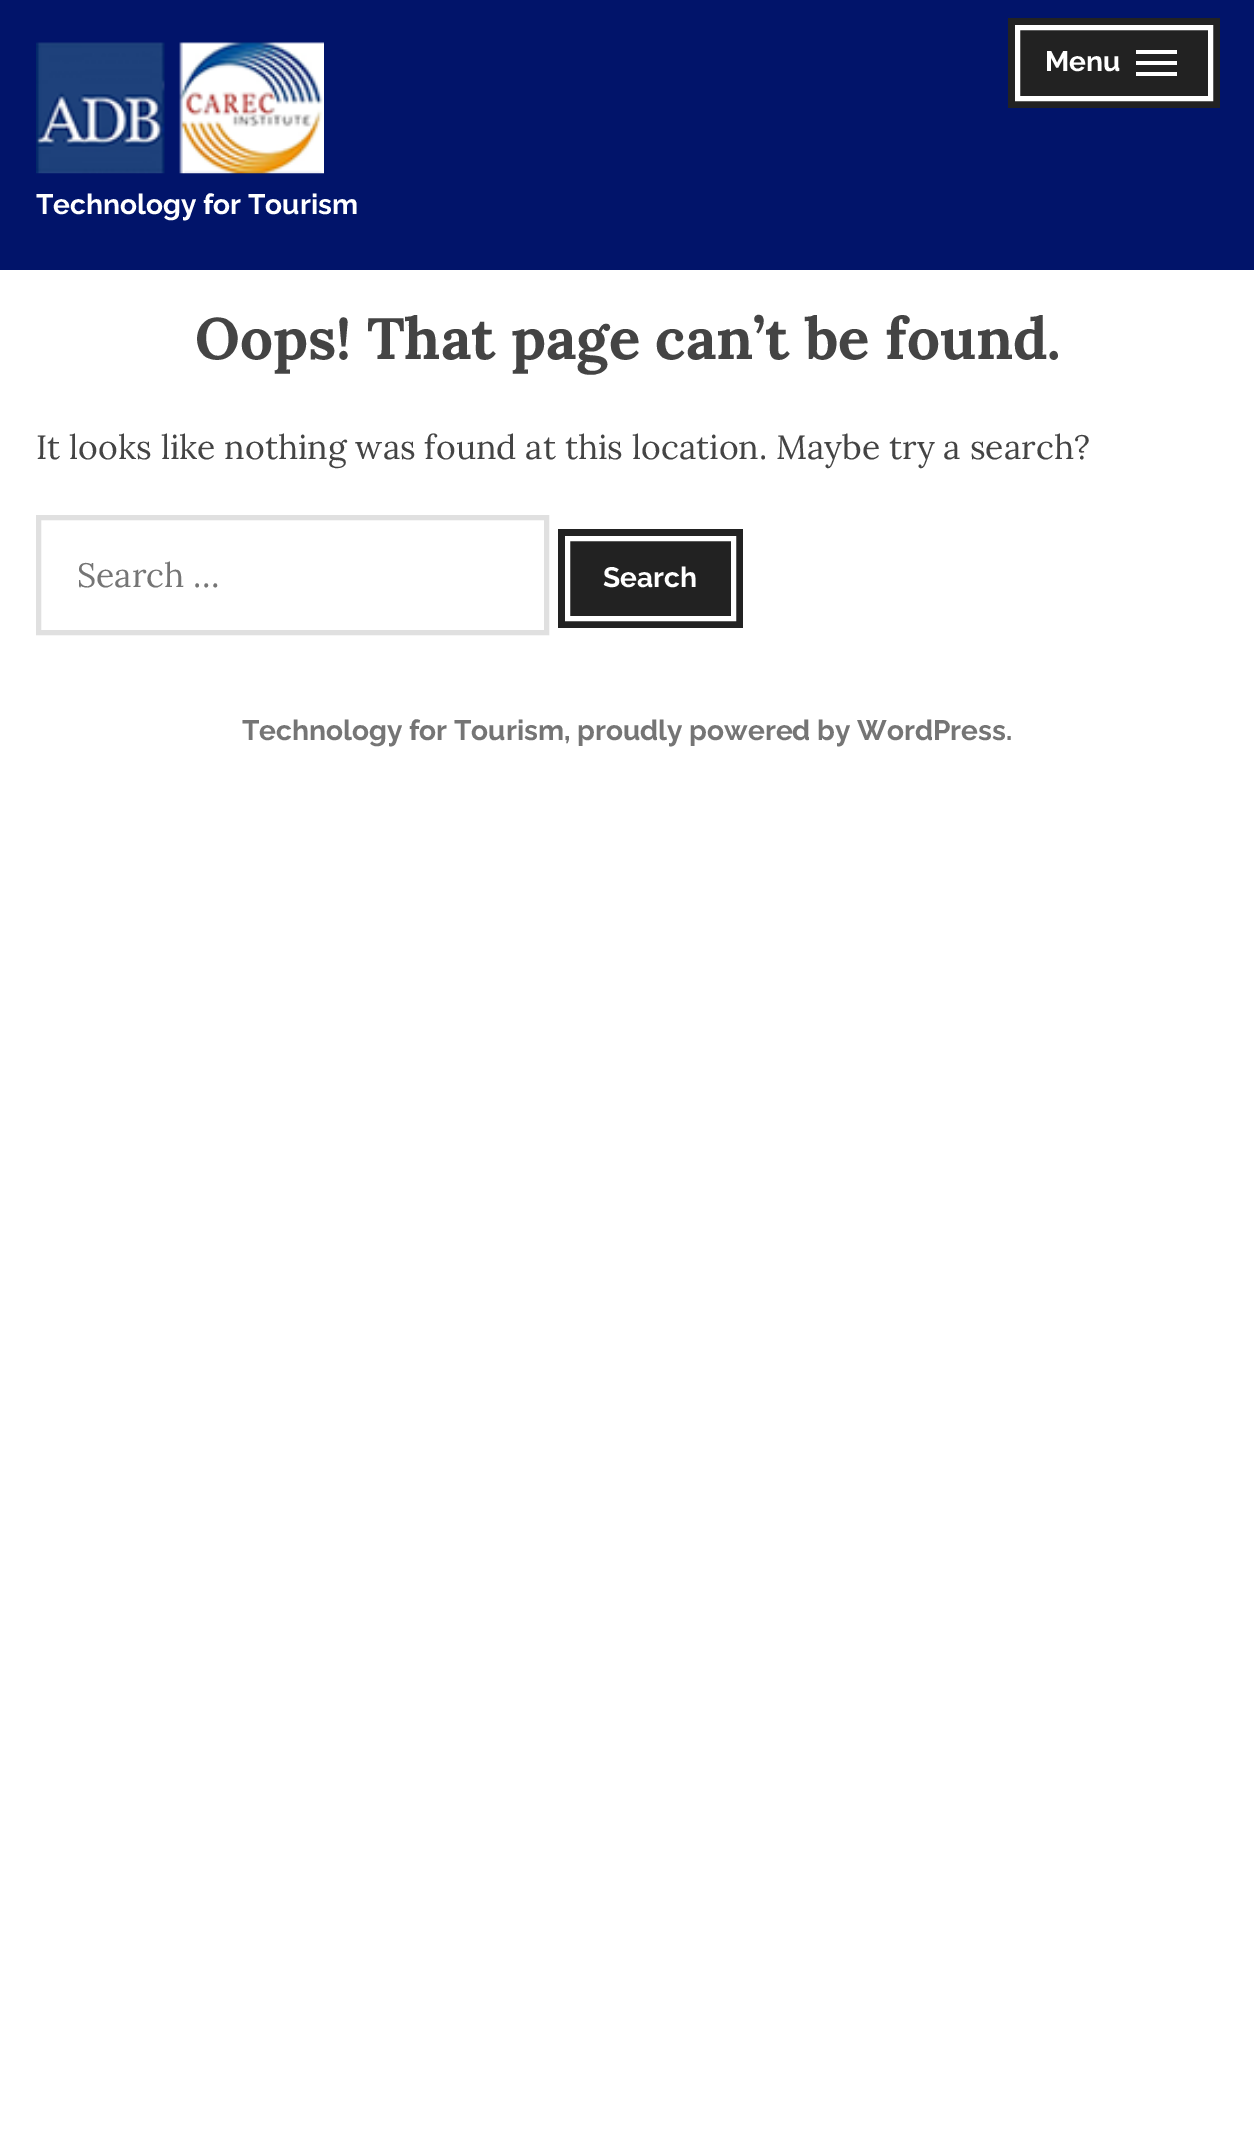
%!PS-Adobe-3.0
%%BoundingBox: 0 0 1254 2140
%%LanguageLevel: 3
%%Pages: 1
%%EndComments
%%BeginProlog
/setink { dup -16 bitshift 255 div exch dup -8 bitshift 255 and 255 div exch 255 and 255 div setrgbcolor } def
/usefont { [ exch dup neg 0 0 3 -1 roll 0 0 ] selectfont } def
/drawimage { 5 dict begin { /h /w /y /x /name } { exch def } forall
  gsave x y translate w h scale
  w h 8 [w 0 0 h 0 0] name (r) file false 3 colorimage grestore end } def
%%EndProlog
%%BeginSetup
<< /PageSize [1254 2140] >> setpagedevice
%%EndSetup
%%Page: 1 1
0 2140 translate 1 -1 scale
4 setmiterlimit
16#FFFFFF setink
0 0 1254 2140 rectfill
16#01146A setink
0 0 1254 270 rectfill
16#222222 setink
1008 18 212 90 rectfill
16#FFFFFF setink
1136 76 moveto 1177 76 lineto 1177 72 lineto 1136 72 lineto closepath 1136 65 moveto 1177 65 lineto 1177 61 lineto 1136 61 lineto closepath 1136 50 moveto 1136 54 lineto 1177 54 lineto 1177 50 lineto closepath fill
5 setlinewidth
1017.5 27.5 193 71 rectstroke
/Raleway-Bold 28.1 usefont
1045 71 moveto (Menu) show
(img1.raw) 36 42 288 132 drawimage
36 214 moveto (Technology for Tourism) show
/Lora-Bold 58.3 usefont
16#444444 setink
195 359 moveto (Oops! That page can’t be found.) show
/Lora-Regular 33.75 usefont
36 459 moveto (It looks like nothing was found at this location. Maybe try a search?) show
16#E0E0E0 setink
38.5 517.5 508 115 rectstroke
16#757575 setink
77 587 moveto (Search …) show
16#222222 setink
558 529 185 99 rectfill
16#FFFFFF setink
567.5 538.5 166 80 rectstroke
/Raleway-Bold 28.1 usefont
603 587 moveto (Search) show
16#757575 setink
242 740 moveto (Technology for Tourism, proudly powered by WordPress.) show
showpage
%%EOF
